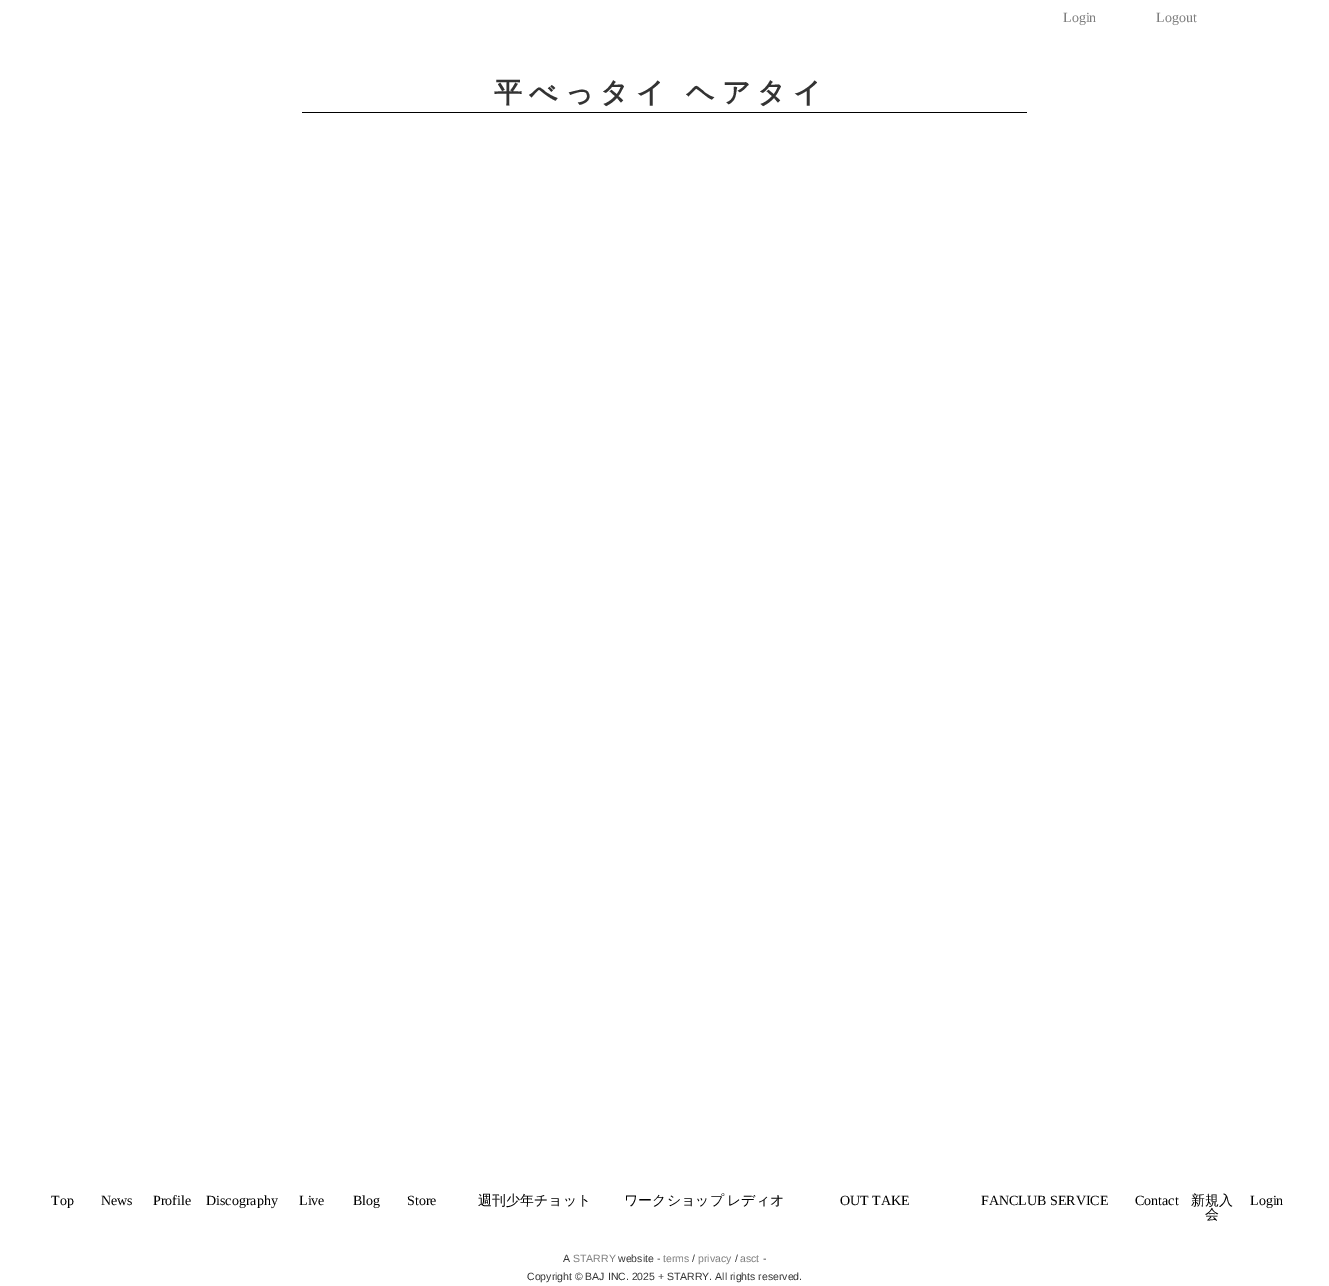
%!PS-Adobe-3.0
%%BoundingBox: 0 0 1329 1286
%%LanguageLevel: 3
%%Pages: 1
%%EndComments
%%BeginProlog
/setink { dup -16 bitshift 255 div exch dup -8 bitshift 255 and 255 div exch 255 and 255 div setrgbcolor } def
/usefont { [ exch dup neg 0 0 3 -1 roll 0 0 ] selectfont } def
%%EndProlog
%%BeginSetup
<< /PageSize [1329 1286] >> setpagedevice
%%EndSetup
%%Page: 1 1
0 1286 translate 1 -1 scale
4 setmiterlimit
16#FFFFFF setink
0 0 1329 1286 rectfill
/LiberationSerif-Regular 14 usefont
16#7E7E7E setink
1063 22 moveto (Login) show
1156 22 moveto (Logout) show
16#000000 setink
[
    [(Top) 51 1205]
    [(News) 101 1205]
    [(Profile) 153 1205]
    [(Discography) 206 1205]
    [(Live) 299 1205]
    [(Blog) 353 1205]
    [(Store) 407 1205]
] { aload pop moveto show } forall
/WenQuanYiZenHei-Medium 14 usefont
478 1205 moveto (週刊少年チョット) show
624 1205 moveto -1 0 32 (ワークショップ レディオ) widthshow
/LiberationSerif-Regular 14 usefont
[
    [(OUT TAKE) 840 1205]
    [(FANCLUB SERVICE) 981 1205]
    [(Contact) 1135 1205]
] { aload pop moveto show } forall
/WenQuanYiZenHei-Medium 14 usefont
1191 1205 moveto (新規入) show
1205 1219 moveto (会) show
/LiberationSerif-Regular 14 usefont
1250 1205 moveto (Login) show
302 112 725 1 rectfill
/WenQuanYiZenHei-Bold 28 usefont
16#333333 setink
494 102 moveto -1 0 32 7 0 (平べっタイ ヘアタイ) awidthshow
/LiberationSans-Regular 10.5 usefont
563 1262 moveto (A) show
16#7E7E7E setink
573 1262 moveto (STARRY) show
16#333333 setink
618 1262 moveto (website -) show
16#7E7E7E setink
663 1262 moveto (terms) show
16#333333 setink
692 1262 moveto (/) show
16#7E7E7E setink
698 1262 moveto (privacy) show
16#333333 setink
735 1262 moveto (/) show
16#7E7E7E setink
740 1262 moveto (asct) show
16#333333 setink
763 1262 moveto (-) show
527 1280 moveto (Copyright © BAJ INC. 2025 + STARRY. All rights reserved.) show
showpage
%%EOF
